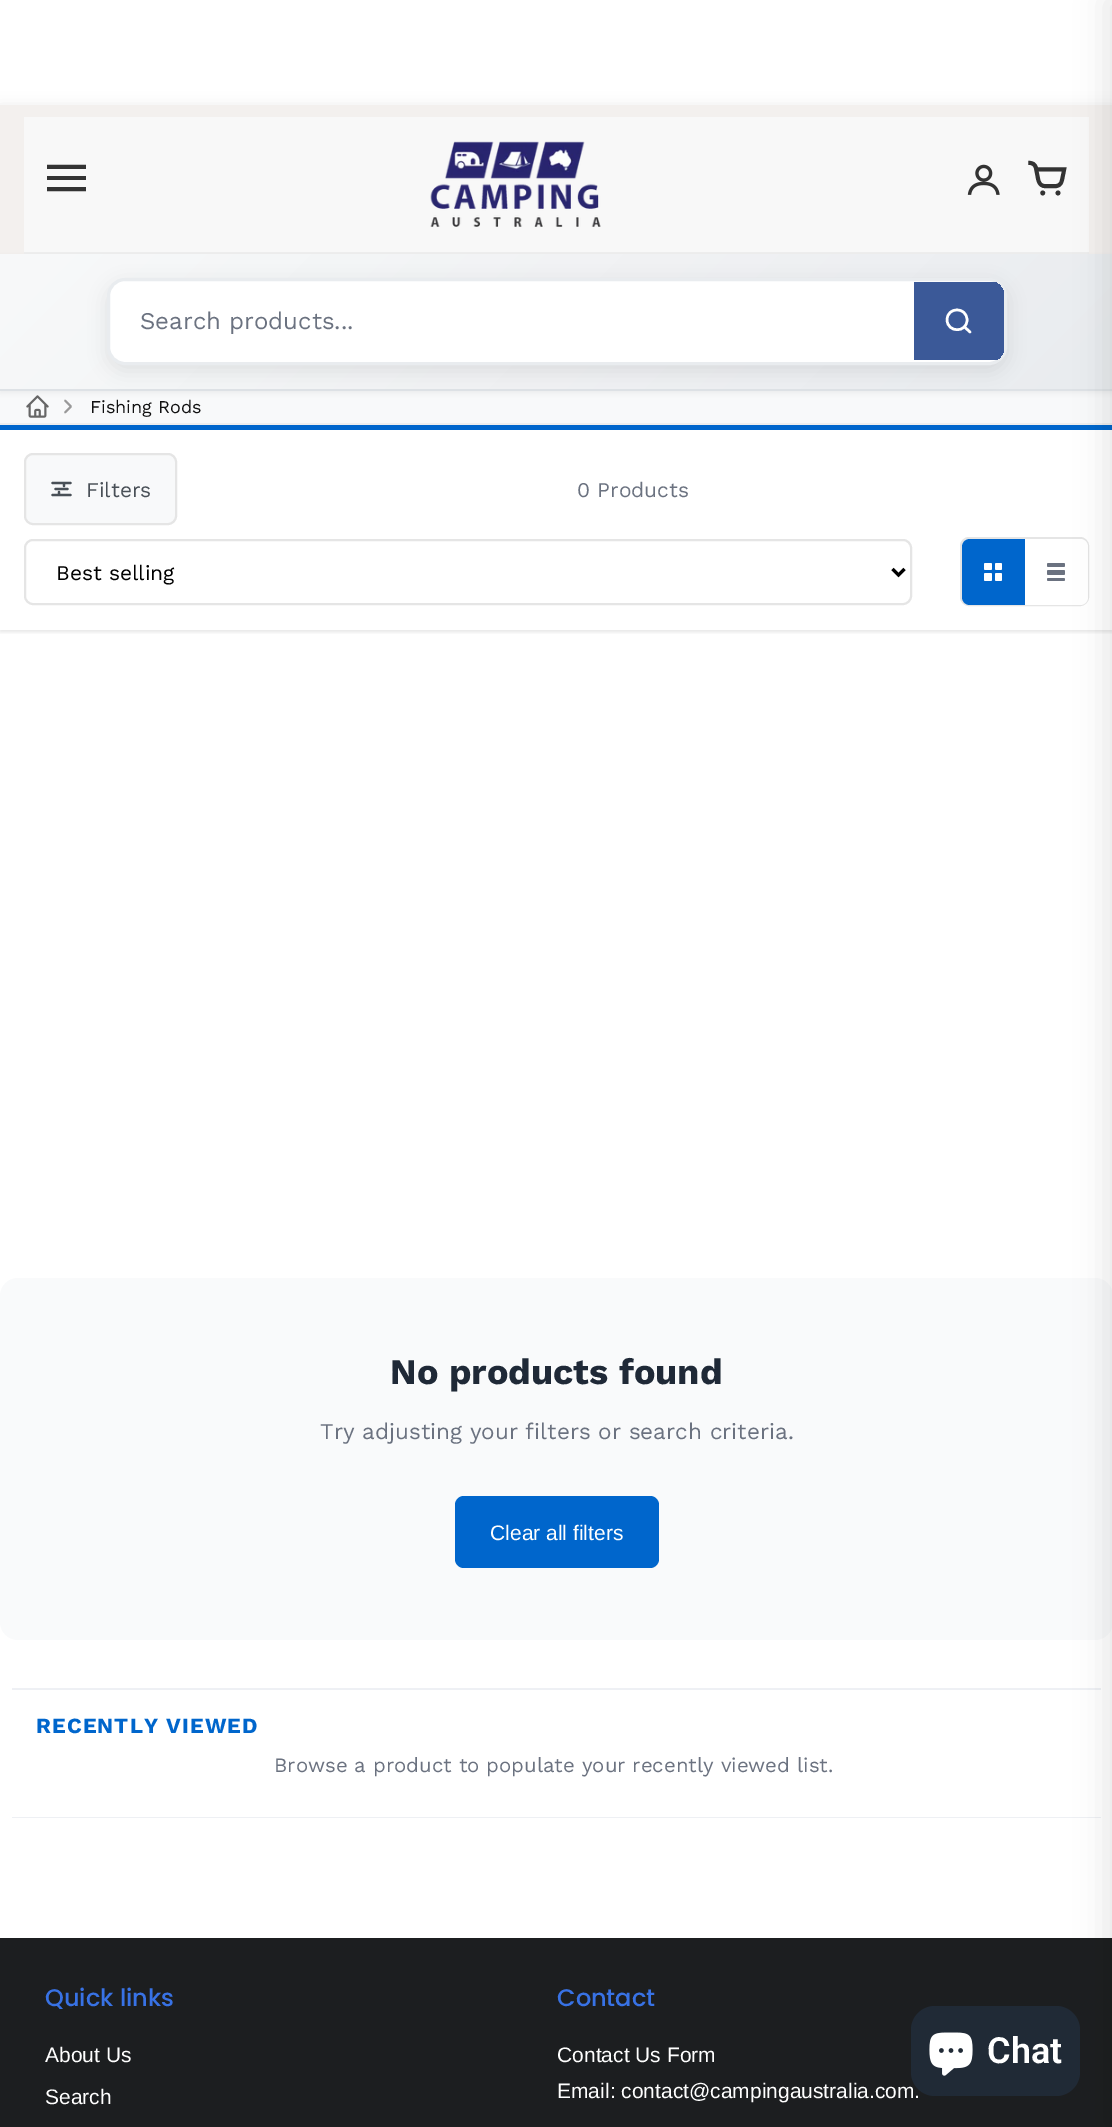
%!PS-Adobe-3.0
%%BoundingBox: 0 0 1112 2127
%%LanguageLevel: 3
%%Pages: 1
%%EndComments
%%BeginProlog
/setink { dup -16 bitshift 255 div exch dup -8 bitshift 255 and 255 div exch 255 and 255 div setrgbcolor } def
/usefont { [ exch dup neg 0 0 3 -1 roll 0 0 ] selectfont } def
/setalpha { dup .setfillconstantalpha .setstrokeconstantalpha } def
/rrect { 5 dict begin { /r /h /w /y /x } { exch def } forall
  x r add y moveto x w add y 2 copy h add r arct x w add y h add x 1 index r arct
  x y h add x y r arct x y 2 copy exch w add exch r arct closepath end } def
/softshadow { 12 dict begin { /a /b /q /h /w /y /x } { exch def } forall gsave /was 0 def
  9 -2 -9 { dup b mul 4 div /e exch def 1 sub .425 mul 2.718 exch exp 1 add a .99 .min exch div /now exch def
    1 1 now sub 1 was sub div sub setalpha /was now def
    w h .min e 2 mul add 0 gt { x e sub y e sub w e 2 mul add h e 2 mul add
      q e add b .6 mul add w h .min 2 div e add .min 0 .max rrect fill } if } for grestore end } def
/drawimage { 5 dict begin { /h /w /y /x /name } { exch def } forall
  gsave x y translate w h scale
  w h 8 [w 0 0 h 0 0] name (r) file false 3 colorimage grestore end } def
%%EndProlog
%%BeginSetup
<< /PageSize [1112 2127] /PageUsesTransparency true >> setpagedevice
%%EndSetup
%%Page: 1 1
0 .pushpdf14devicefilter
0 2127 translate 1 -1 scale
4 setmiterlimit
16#FFFFFF setink
0 0 1112 2127 rectfill
16#000000 setink
0 108 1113 285 0 7.5 0.1 softshadow
[
    [0 105 1112 149 16#F3F0EE]
    [24 117 1065 135 16#F8F8F8]
    [24 252 1065 2 16#EEEEEE]
] { aload pop setink rectfill } forall
/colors-Regular 39 usefont
16#333333 setink
47 200 moveto (1) show
(img1.raw) 430 141 171 86 drawimage
(img2.raw) 967 164 33 31 drawimage
1028 200 moveto (3) show
16#F8F9FA setink
0 391 1112 32 rectfill
(img3.raw) 26 395 23 23 drawimage
16#999999 setink
1.8 setlinewidth
1 setlinecap
1 setlinejoin
65 400.5 moveto 71 406.5 lineto 65 412.5 lineto stroke
16#000000 setink
0 257 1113 136 0 3 0.05 softshadow
gsave 0 254 moveto 1112 254 lineto 1112 389 lineto 0 389 lineto closepath clip newpath
<< /ShadingType 2 /ColorSpace /DeviceRGB /Coords [245 9 869 633] /Extend [true true] /Function << /FunctionType 2 /Domain [0 1] /C0 [0.973 0.976 0.98] /C1 [0.914 0.925 0.937] /N 1 >> >> shfill grestore
16#DEE2E6 setink
0 389 1112 2 rectfill
16#000000 setink
107 284 900 87 18 9 0.08 softshadow
16#FFFFFF setink
108.5 279.5 897 84 16.5 rrect gsave fill grestore
16#E9ECEF setink
3 setlinewidth
0 setlinecap
0 setlinejoin
stroke
/WorkSans-Regular 24 usefont
16#6B7280 setink
140 329 moveto (Search products...) show
gsave
110 281 894 81 15 rrect clip newpath
16#3B5998 setink
914 282 90 78 rectfill
grestore
16#FFFFFF setink
2.5 setlinewidth
1 setlinecap
1 setlinejoin
970 332 moveto 964.5 327 lineto 967 320 moveto 967 333 947.5 333 947 320 curveto 947 306.5 967 306.5 967 320 curveto closepath stroke
16#EEEEEE setink
0 423 1112 2 rectfill
gsave
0 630 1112 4 rectclip
16#000000 setink
0 426 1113 206 0 2 0.1 softshadow
grestore
16#0066CC setink
0 425 1112 5 rectfill
16#E5E5E5 setink
2 setlinewidth
0 setlinecap
0 setlinejoin
961 538 127 67 8 rrect stroke
16#FFFFFF setink
1025 539 moveto 1080 539 lineto 1084.5 539 1088 542.5 1088 547 curveto 1088 597 lineto 1088 601.5 1084.5 605 1080 605 curveto 1025 605 lineto closepath fill
16#6B7280 setink
1047 563 18 4 1.5 rrect fill
1047 570 18 5 1.5 rrect fill
1047 578 18 3 1.5 rrect fill
16#F9FAFB setink
0 1278 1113 362 18 rrect fill
[
    [12 1688 1089 2 16#EEF0F4]
    [12 1817 1089 1 16#EEF0F4]
    [0 1938 1112 189 16#1C1E20]
] { aload pop setink rectfill } forall
16#000000 setink
1106 0 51 2127 0 15 0.1 softshadow
/WorkSans-Regular 18 usefont
16#111111 setink
90 413 moveto (Fishing Rods) show
16#F8F9FA setink
25 454 151 70 8 rrect gsave fill grestore
16#E5E5E5 setink
stroke
16#495057 setink
2.2 setlinewidth
1 setlinecap
1 setlinejoin
59 495 moveto 59 492 lineto 64 486 moveto 64 483 lineto 52.5 483 moveto 70.5 483 lineto 52.5 495 moveto 70.5 495 lineto 55.5 489 moveto 67.5 489 lineto stroke
/WorkSans-Regular 21 usefont
86 497 moveto (Filters) show
16#6B7280 setink
577 497 moveto (0 Products) show
16#E5E5E5 setink
2 setlinewidth
0 setlinecap
0 setlinejoin
25 540 886 64 8 rrect stroke
16#000000 setink
3 setlinewidth
892.5 569 moveto 898.5 575 lineto 904.5 569 lineto stroke
56 580 moveto (Best selling) show
16#0066CC setink
970 539 moveto 1025 539 lineto 1025 605 lineto 970 605 lineto 965.5 605 962 601.5 962 597 curveto 962 547 lineto 962 542.5 965.5 539 970 539 curveto closepath fill
16#FFFFFF setink
984 563 8 7 1.5 rrect fill
995 563 7 7 1.5 rrect fill
984 573 8 8 1.5 rrect fill
995 573 7 8 1.5 rrect fill
/WorkSans-Bold 36 usefont
16#1F2937 setink
390 1384 moveto (No products found) show
/WorkSans-Regular 22.5 usefont
16#6B7280 setink
320 1439 moveto (Try adjusting your filters or search criteria.) show
16#0066CC setink
455 1496 204 72 9 rrect fill
/Arimo-Regular 21 usefont
16#FFFFFF setink
490 1540 moveto (Clear all filters) show
/WorkSans-Bold 21.6 usefont
16#0066CC setink
36 1733 moveto 1.1 0 (RECENTLY VIEWED) ashow
/WorkSans-Regular 20.4 usefont
16#6B7280 setink
274 1772 moveto (Browse a product to populate your recently viewed list.) show
/Poppins-Medium 24 usefont
16#3872E5 setink
45 2006 moveto (Quick links) show
/Arimo-Regular 21 usefont
16#FFFFFF setink
45 2062 moveto (About Us) show
45 2104 moveto (Search) show
/Poppins-Medium 24 usefont
16#3872E5 setink
557 2006 moveto (Contact) show
/Arimo-Regular 21 usefont
16#FFFFFF setink
557 2062 moveto (Contact Us Form) show
557 2098 moveto (Email: contact@campingaustralia.com.) show
16#202A36 setink
911 2006 169 90 24 rrect fill
(img4.raw) 929 2032 44 44 drawimage
/Roboto-SemiBold 36 usefont
16#FFFFFF setink
987 2063 moveto (Chat) show
.poppdf14devicefilter showpage
%%EOF
